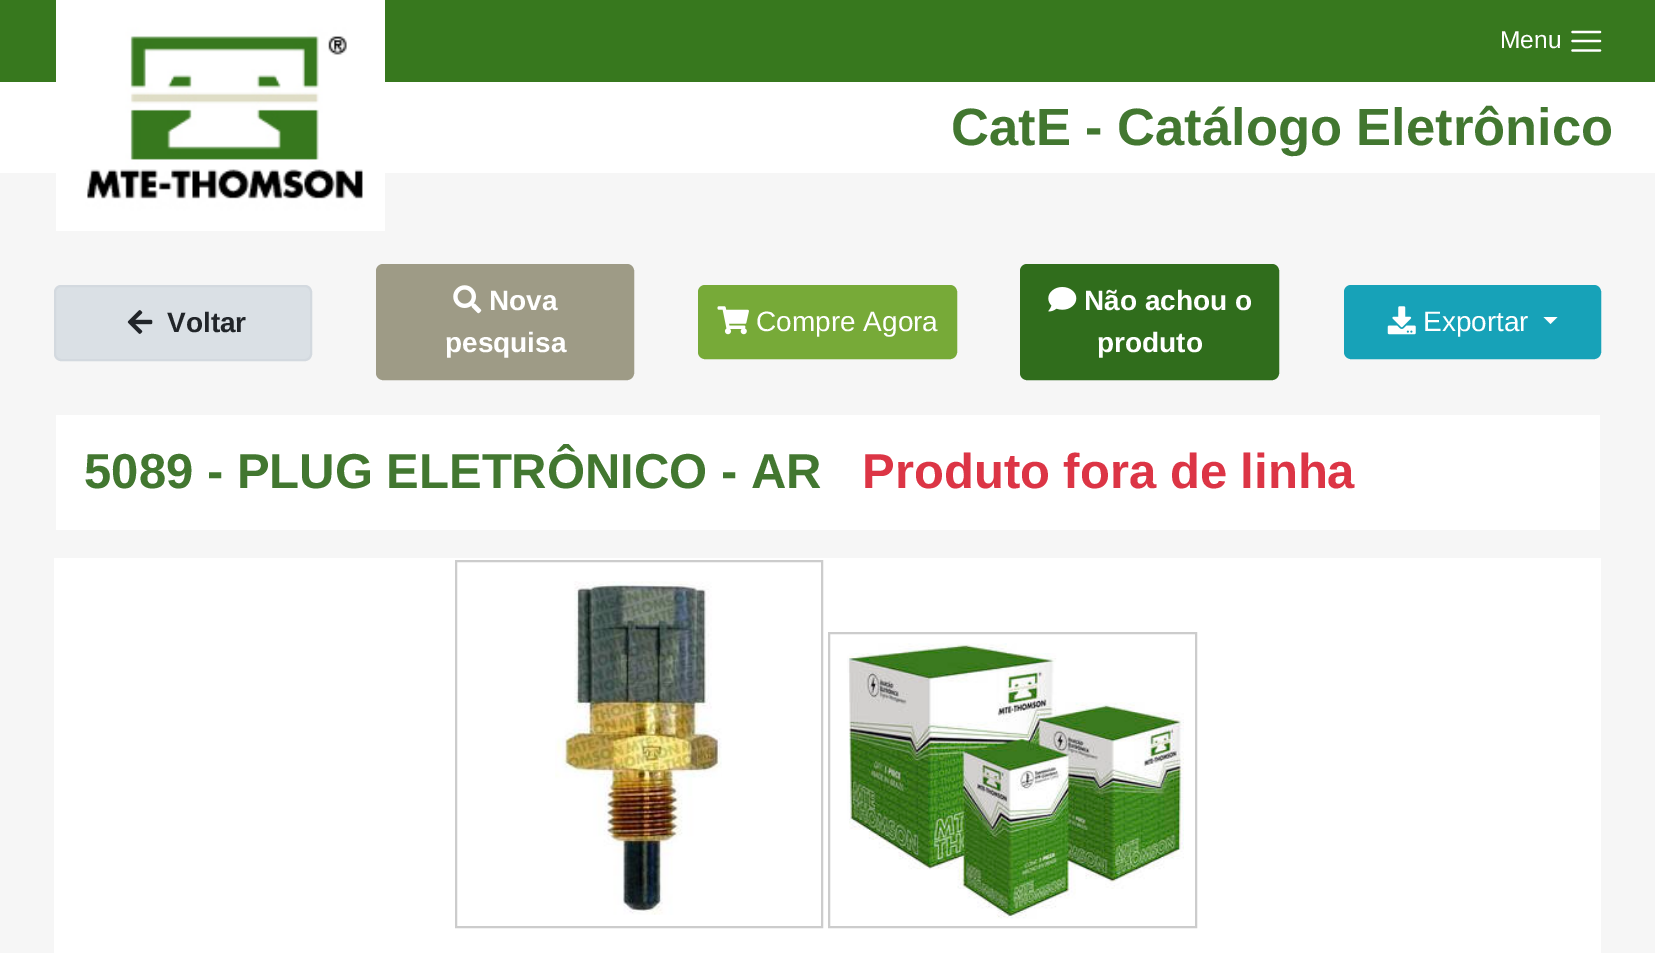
%!PS-Adobe-3.0
%%BoundingBox: 0 0 1655 953
%%LanguageLevel: 3
%%Pages: 1
%%EndComments
%%BeginProlog
/setink { dup -16 bitshift 255 div exch dup -8 bitshift 255 and 255 div exch 255 and 255 div setrgbcolor } def
/usefont { [ exch dup neg 0 0 3 -1 roll 0 0 ] selectfont } def
/rrect { 5 dict begin { /r /h /w /y /x } { exch def } forall
  x r add y moveto x w add y 2 copy h add r arct x w add y h add x 1 index r arct
  x y h add x y r arct x y 2 copy exch w add exch r arct closepath end } def
/drawimage { 5 dict begin { /h /w /y /x /name } { exch def } forall
  gsave x y translate w h scale
  w h 8 [w 0 0 h 0 0] name (r) file false 3 colorimage grestore end } def
%%EndProlog
%%BeginSetup
<< /PageSize [1655 953] >> setpagedevice
%%EndSetup
%%Page: 1 1
0 953 translate 1 -1 scale
4 setmiterlimit
16#F6F6F6 setink
0 0 1655 953 rectfill
16#37781E setink
0 0 1655 82 rectfill
16#FFFFFF setink
0 82 1655 91 rectfill
(img1.raw) 56 0 329 231 drawimage
/LiberationSans-Regular 24.5 usefont
1500 48 moveto (Menu) show
2.3 setlinewidth
1 setlinecap
1572.5 32 moveto 1600 32 lineto 1572.5 41 moveto 1600 41 lineto 1572.5 50.5 moveto 1600 50.5 lineto stroke
/LiberationSans-Bold 52.5 usefont
16#427730 setink
951 145 moveto (CatE - Catálogo Eletrônico) show
16#DAE0E5 setink
55 286 256 74 6 rrect gsave fill grestore
16#D3D9DF setink
2 setlinewidth
0 setlinecap
stroke
(img2.raw) 127 310 26 24 drawimage
/LiberationSans-Bold 28 usefont
16#212529 setink
167 332 moveto (Voltar) show
16#9E9B86 setink
377 265 256 114 6 rrect gsave fill grestore
stroke
(img3.raw) 453 285 29 29 drawimage
16#FFFFFF setink
489 310 moveto (Nova) show
445 352 moveto (pesquisa) show
16#77AA38 setink
699 286 257 72 6 rrect gsave fill grestore
stroke
(img4.raw) 717 306 32 29 drawimage
/LiberationSans-Regular 28 usefont
16#FFFFFF setink
756 331 moveto (Compre Agora) show
16#306D1C setink
1021 265 257 114 6 rrect gsave fill grestore
stroke
(img5.raw) 1048 287 29 25 drawimage
/LiberationSans-Bold 28 usefont
16#FFFFFF setink
1084 310 moveto (Não achou o) show
1097 352 moveto (produto) show
16#17A2B8 setink
1345 286 255 72 6 rrect gsave fill grestore
stroke
(img6.raw) 1387 306 29 29 drawimage
/LiberationSans-Regular 28 usefont
16#FFFFFF setink
1423 331 moveto (Exportar) show
1543.5 317 moveto 1557.5 317 lineto 1550.5 324 lineto closepath fill
56 415 1544 115 rectfill
/LiberationSans-Bold 49 usefont
16#427730 setink
84 488 moveto (5089 - PLUG ELETRÔNICO - AR) show
16#DC3545 setink
862 488 moveto (Produto fora de linha) show
16#FFFFFF setink
54 558 1547 395 rectfill
(img7.raw) 555 581 167 334 drawimage
16#CCCCCC setink
456 561 366 366 rectstroke
(img8.raw) 847 643 337 276 drawimage
829 633 367 294 rectstroke
showpage
%%EOF
